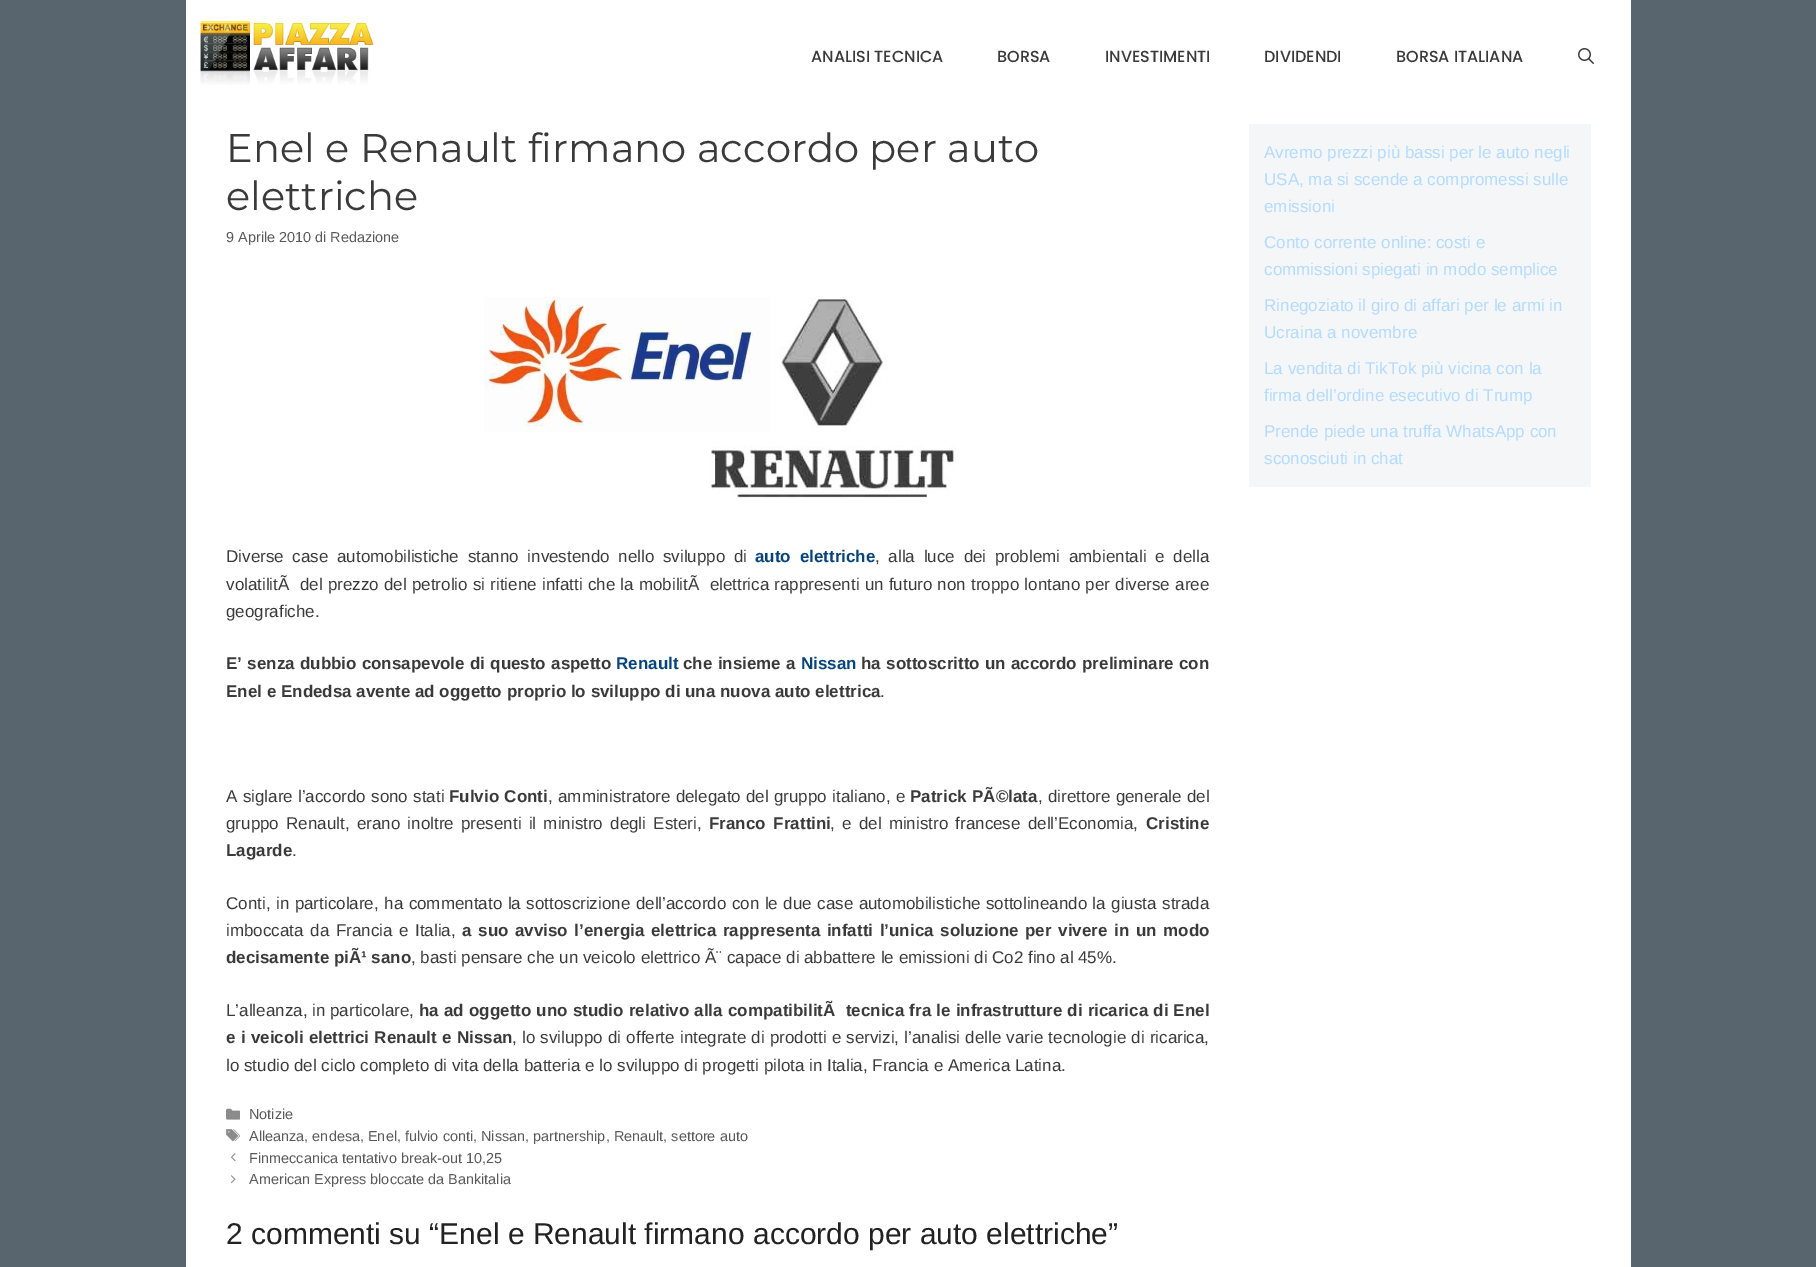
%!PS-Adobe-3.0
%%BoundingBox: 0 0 1816 1267
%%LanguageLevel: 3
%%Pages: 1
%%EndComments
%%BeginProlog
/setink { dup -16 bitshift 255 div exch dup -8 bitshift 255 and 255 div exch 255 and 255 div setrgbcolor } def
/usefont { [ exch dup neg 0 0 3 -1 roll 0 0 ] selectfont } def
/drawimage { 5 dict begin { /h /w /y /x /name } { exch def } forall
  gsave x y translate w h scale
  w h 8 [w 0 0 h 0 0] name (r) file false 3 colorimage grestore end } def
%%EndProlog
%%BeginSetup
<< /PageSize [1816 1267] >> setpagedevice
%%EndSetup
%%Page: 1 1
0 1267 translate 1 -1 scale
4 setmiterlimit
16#58656F setink
0 0 1816 1267 rectfill
16#FFFFFF setink
186 0 1445 1267 rectfill
(img1.raw) 200 21 174 64 drawimage
/Poppins-Medium 16 usefont
16#3A3A3A setink
[
    [(ANALISI TECNICA) 811 62]
    [(BORSA) 997 62]
    [(INVESTIMENTI) 1105 62]
    [(DIVIDENDI) 1264 62]
    [(BORSA ITALIANA) 1396 62]
] { aload pop moveto show } forall
(img2.raw) 1578 48 16 16 drawimage
/Montserrat-Regular 40 usefont
226 162 moveto (Enel e Renault firmano accordo per auto) show
226 210 moveto (elettriche) show
/LiberationSans-Regular 14.45 usefont
16#595959 setink
226 242 moveto (9 Aprile 2010 di Redazione) show
(img3.raw) 484 297 472 201 drawimage
/LiberationSans-Regular 17 usefont
16#3A3A3A setink
226 562 moveto 4 0 32 (Diverse case automobilistiche stanno investendo nello sviluppo di) widthshow
/LiberationSans-Bold 17 usefont
16#06447A setink
755 562 moveto 4 0 32 (auto elettriche) widthshow
/LiberationSans-Regular 17 usefont
16#3A3A3A setink
875 562 moveto 4 0 32 (, alla luce dei problemi ambientali e della) widthshow
226 590 moveto 0.5 0 32 (volatilitÃ  del prezzo del petrolio si ritiene infatti che la mobilitÃ  elettrica rappresenti un futuro non troppo lontano per diverse aree) widthshow
226 617 moveto (geografiche.) show
/LiberationSans-Bold 17 usefont
226 669 moveto 0.5 0 32 (E’ senza dubbio consapevole di questo aspetto) widthshow
16#06447A setink
616 669 moveto (Renault) show
16#3A3A3A setink
683 669 moveto 0.5 0 32 (che insieme a) widthshow
16#06447A setink
801 669 moveto (Nissan) show
16#3A3A3A setink
861 669 moveto 0.5 0 32 (ha sottoscritto un accordo preliminare con) widthshow
226 697 moveto (Enel e Endedsa avente ad oggetto proprio lo sviluppo di una nuova auto elettrica) show
/LiberationSans-Regular 17 usefont
880 697 moveto (.) show
226 802 moveto 0.5 0 32 (A siglare l’accordo sono stati) widthshow
/LiberationSans-Bold 17 usefont
449 802 moveto 0.5 0 32 (Fulvio Conti) widthshow
/LiberationSans-Regular 17 usefont
548 802 moveto 0.5 0 32 (, amministratore delegato del gruppo italiano, e) widthshow
/LiberationSans-Bold 17 usefont
910 802 moveto 0.5 0 32 (Patrick PÃ©lata) widthshow
/LiberationSans-Regular 17 usefont
1038 802 moveto 0.5 0 32 (, direttore generale del) widthshow
226 829 moveto 2.5 0 32 (gruppo Renault, erano inoltre presenti il ministro degli Esteri,) widthshow
/LiberationSans-Bold 17 usefont
709 829 moveto 3 0 32 (Franco Frattini) widthshow
/LiberationSans-Regular 17 usefont
830 829 moveto 2.5 0 32 (, e del ministro francese dell’Economia,) widthshow
/LiberationSans-Bold 17 usefont
1146 829 moveto (Cristine) show
226 856 moveto (Lagarde) show
/LiberationSans-Regular 17 usefont
292 856 moveto (.) show
226 909 moveto 0.75 0 32 (Conti, in particolare, ha commentato la sottoscrizione dell’accordo con le due case automobilistiche sottolineando la giusta strada) widthshow
226 936 moveto 1.9 0 32 (imboccata da Francia e Italia,) widthshow
/LiberationSans-Bold 17 usefont
462 936 moveto 1.9 0 32 (a suo avviso l’energia elettrica rappresenta infatti l’unica soluzione per vivere in un modo) widthshow
226 963 moveto (decisamente piÃ¹ sano) show
/LiberationSans-Regular 17 usefont
411 963 moveto (, basti pensare che un veicolo elettrico Ã¨ capace di abbattere le emissioni di Co2 fino al 45%.) show
226 1016 moveto (L’alleanza, in particolare,) show
/LiberationSans-Bold 17 usefont
419 1016 moveto 0.4 0 32 (ha ad oggetto uno studio relativo alla compatibilitÃ  tecnica fra le infrastrutture di ricarica di Enel) widthshow
226 1043 moveto 0.5 0 32 (e i veicoli elettrici Renault e Nissan) widthshow
/LiberationSans-Regular 17 usefont
512 1043 moveto 0.5 0 32 (, lo sviluppo di offerte integrate di prodotti e servizi, l’analisi delle varie tecnologie di ricarica,) widthshow
226 1071 moveto (lo studio del ciclo completo di vita della batteria e lo sviluppo di progetti pilota in Italia, Francia e America Latina.) show
(img4.raw) 226 1108 14 12 drawimage
/LiberationSans-Regular 14.45 usefont
16#595959 setink
249 1119 moveto (Notizie) show
(img5.raw) 226 1129 14 13 drawimage
249 1141 moveto (Alleanza, endesa, Enel, fulvio conti, Nissan, partnership, Renault, settore auto) show
(img6.raw) 231 1153 5 9 drawimage
249 1163 moveto (Finmeccanica tentativo break-out 10,25) show
(img7.raw) 231 1175 5 9 drawimage
249 1184 moveto (American Express bloccate da Bankitalia) show
/LiberationSans-Regular 30 usefont
16#222222 setink
226 1244 moveto (2 commenti su “Enel e Renault firmano accordo per auto elettriche”) show
16#F4F6F7 setink
1249 124 342 363 rectfill
/LiberationSans-Regular 17 usefont
16#B2DBFF setink
[
    [(Avremo prezzi più bassi per le auto negli) 1264 158]
    [(USA, ma si scende a compromessi sulle) 1264 185]
    [(emissioni) 1264 212]
    [(Conto corrente online: costi e) 1264 248]
    [(commissioni spiegati in modo semplice) 1264 275]
    [(Rinegoziato il giro di affari per le armi in) 1264 311]
    [(Ucraina a novembre) 1264 338]
    [(La vendita di TikTok più vicina con la) 1264 374]
    [(firma dell’ordine esecutivo di Trump) 1264 401]
    [(Prende piede una truffa WhatsApp con) 1264 437]
    [(sconosciuti in chat) 1264 464]
] { aload pop moveto show } forall
showpage
%%EOF
